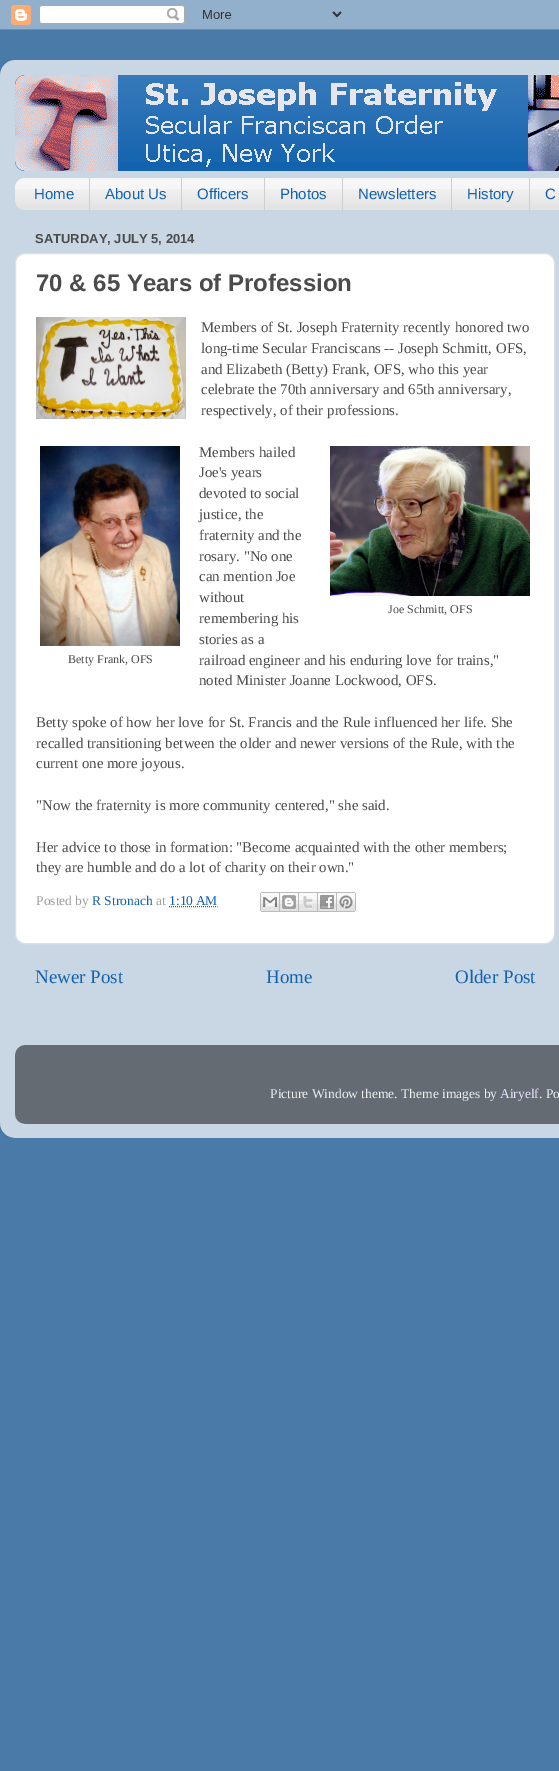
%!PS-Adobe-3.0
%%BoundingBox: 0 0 559 1771
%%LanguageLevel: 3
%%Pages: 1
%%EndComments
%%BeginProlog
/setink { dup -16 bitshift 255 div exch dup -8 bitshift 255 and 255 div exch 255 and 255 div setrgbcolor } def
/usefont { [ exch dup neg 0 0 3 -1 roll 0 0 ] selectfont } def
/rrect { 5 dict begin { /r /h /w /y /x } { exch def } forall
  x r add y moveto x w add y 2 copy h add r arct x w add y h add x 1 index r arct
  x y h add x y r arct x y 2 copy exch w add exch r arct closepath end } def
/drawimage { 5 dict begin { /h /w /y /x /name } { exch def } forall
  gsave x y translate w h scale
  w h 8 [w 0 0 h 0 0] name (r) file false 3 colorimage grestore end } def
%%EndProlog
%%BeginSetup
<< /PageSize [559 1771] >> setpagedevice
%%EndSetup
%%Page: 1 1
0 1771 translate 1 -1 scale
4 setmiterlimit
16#4A7AA8 setink
0 0 559 1771 rectfill
(img1.raw) 0 0 559 30 drawimage
(img2.raw) 0 60 559 1078 drawimage
16#1362AE setink
15 75 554 96 10 rrect fill
(img3.raw) 15 75 513 84 drawimage
(img4.raw) 15 75 544 96 drawimage
16#F6F6F6 setink
15 178 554 32 10 rrect fill
(img5.raw) 15 189 544 21 drawimage
16#CECECE setink
89 178 1 32 rectfill
/LiberationSans-Regular 15 usefont
16#1362AE setink
34 199 moveto (Home) show
16#CECECE setink
181 178 1 32 rectfill
16#1362AE setink
105 199 moveto (About Us) show
16#CECECE setink
264 178 1 32 rectfill
16#1362AE setink
197 199 moveto (Officers) show
16#CECECE setink
342 178 1 32 rectfill
16#1362AE setink
280 199 moveto (Photos) show
16#CECECE setink
451 178 1 32 rectfill
16#1362AE setink
358 199 moveto (Newsletters) show
16#CECECE setink
529 178 1 32 rectfill
16#1362AE setink
467 199 moveto (History) show
545 199 moveto (C) show
/LiberationSans-Bold 13 usefont
16#4B4B4B setink
35 243 moveto (SATURDAY, JULY 5, 2014) show
16#FFFFFF setink
15.5 253.5 539 690 9.5 rrect gsave fill grestore
16#DFDFDF setink
stroke
/LiberationSans-Bold 24 usefont
16#4B4B4B setink
36 291 moveto (70 & 65 Years of Profession) show
(img6.raw) 36 317 150 102 drawimage
/LiberationSerif-Regular 14.85 usefont
[
    [(Members of St. Joseph Fraternity recently honored two) 201 332]
    [(long-time Secular Franciscans -- Joseph Schmitt, OFS,) 201 353]
    [(and Elizabeth \(Betty\) Frank, OFS, who this year) 201 374]
    [(celebrate the 70th anniversary and 65th anniversary,) 201 394]
    [(respectively, of their professions.) 201 415]
    [(Members hailed) 199 457]
    [(Joe's years) 199 477]
    [(devoted to social) 199 498]
    [(justice, the) 199 519]
    [(fraternity and the) 199 540]
    [(rosary. "No one) 199 561]
    [(can mention Joe) 199 581]
    [(without) 199 602]
] { aload pop moveto show } forall
(img7.raw) 330 446 200 150 drawimage
/LiberationSerif-Regular 12 usefont
388 613 moveto (Joe Schmitt, OFS) show
/LiberationSerif-Regular 14.85 usefont
199 623 moveto (remembering his) show
199 644 moveto (stories as a) show
(img8.raw) 40 446 140 200 drawimage
/LiberationSerif-Regular 12 usefont
68 663 moveto (Betty Frank, OFS) show
/LiberationSerif-Regular 14.85 usefont
[
    [(railroad engineer and his enduring love for trains,") 199 665]
    [(noted Minister Joanne Lockwood, OFS.) 199 685]
    [(Betty spoke of how her love for St. Francis and the Rule influenced her life. She) 36 727]
    [(recalled transitioning between the older and newer versions of the Rule, with the) 36 748]
    [(current one more joyous.) 36 768]
    [("Now the fraternity is more community centered," she said.) 36 810]
    [(Her advice to those in formation: "Become acquainted with the other members;) 36 852]
    [(they are humble and do a lot of charity on their own.") 36 872]
] { aload pop moveto show } forall
/LiberationSerif-Regular 13.5 usefont
16#9D9D9D setink
36 905 moveto (Posted by) show
16#1362AE setink
92 905 moveto (R Stronach) show
16#9D9D9D setink
156 905 moveto (at) show
16#1362AE setink
169 905 moveto (1:10 AM) show
[1 1] 0 setdash
169 906.5 moveto 217.5 906.5 lineto stroke
(img9.raw) 260 892 20 20 drawimage
(img10.raw) 280 892 19 20 drawimage
(img11.raw) 299 892 19 20 drawimage
(img12.raw) 318 892 19 20 drawimage
(img13.raw) 337 892 19 20 drawimage
/LiberationSerif-Regular 19 usefont
[
    [(Newer Post) 35 983]
    [(Home) 266 983]
    [(Older Post) 455 983]
] { aload pop moveto show } forall
(img14.raw) 15 1045 544 79 drawimage
/LiberationSerif-Regular 13.5 usefont
16#EFEFEF setink
270 1098 moveto (Picture Window theme. Theme images by) show
16#EBE0FF setink
500 1098 moveto (Airyelf) show
16#EFEFEF setink
539 1098 moveto (. Po) show
showpage
%%EOF
